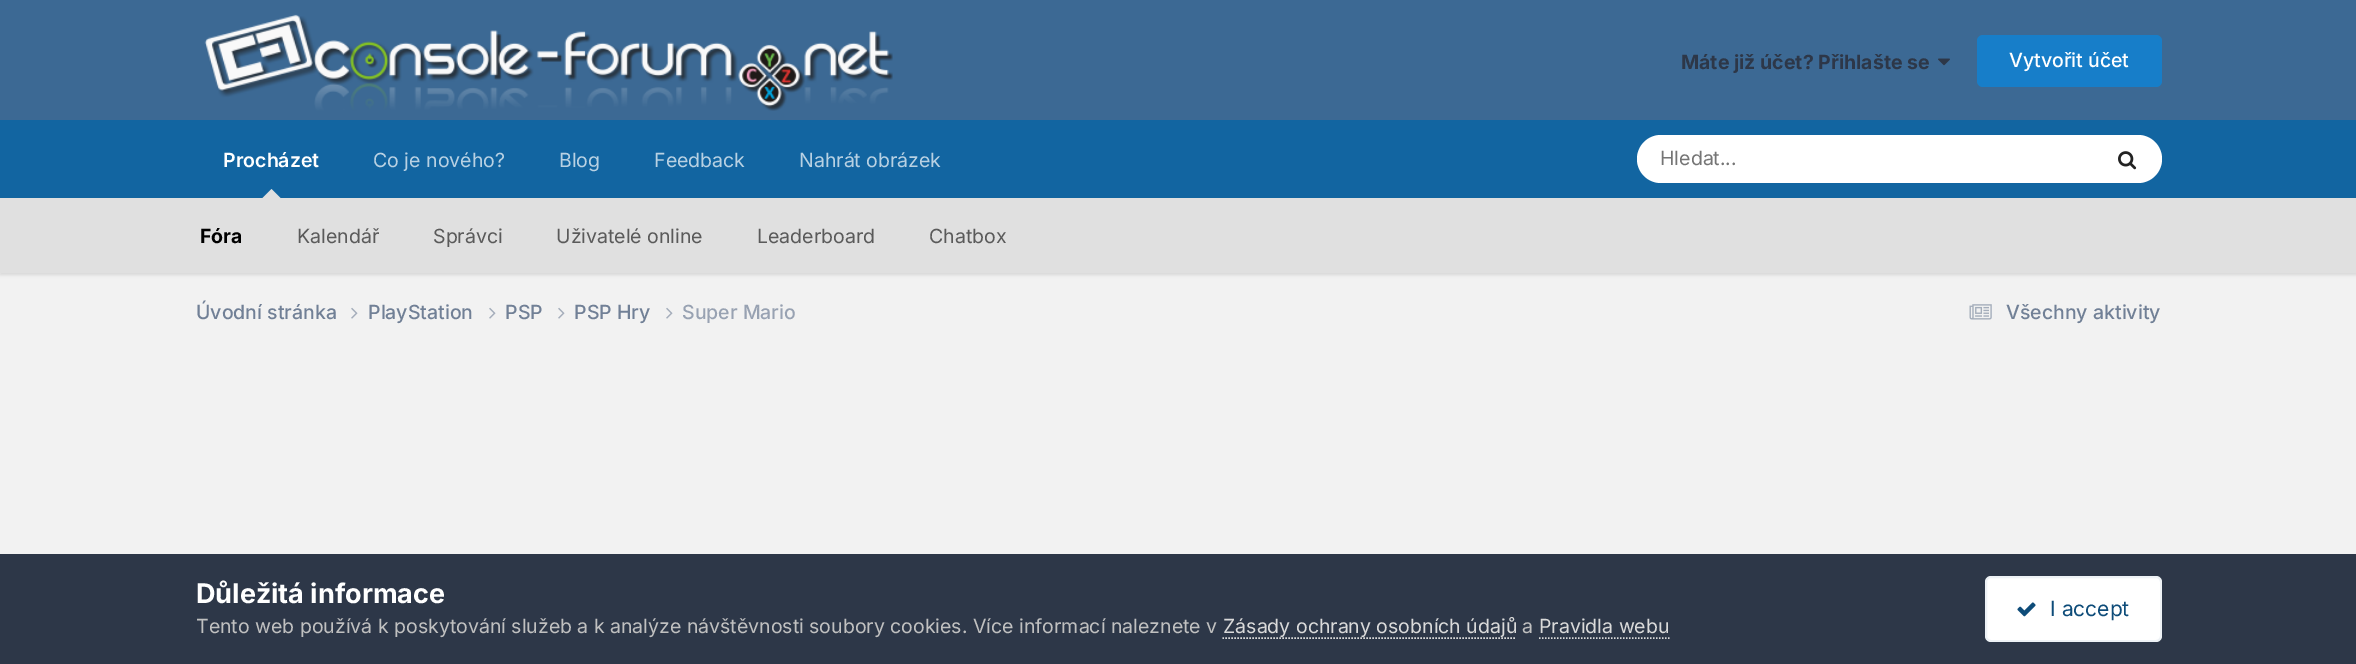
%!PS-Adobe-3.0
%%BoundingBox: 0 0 2356 664
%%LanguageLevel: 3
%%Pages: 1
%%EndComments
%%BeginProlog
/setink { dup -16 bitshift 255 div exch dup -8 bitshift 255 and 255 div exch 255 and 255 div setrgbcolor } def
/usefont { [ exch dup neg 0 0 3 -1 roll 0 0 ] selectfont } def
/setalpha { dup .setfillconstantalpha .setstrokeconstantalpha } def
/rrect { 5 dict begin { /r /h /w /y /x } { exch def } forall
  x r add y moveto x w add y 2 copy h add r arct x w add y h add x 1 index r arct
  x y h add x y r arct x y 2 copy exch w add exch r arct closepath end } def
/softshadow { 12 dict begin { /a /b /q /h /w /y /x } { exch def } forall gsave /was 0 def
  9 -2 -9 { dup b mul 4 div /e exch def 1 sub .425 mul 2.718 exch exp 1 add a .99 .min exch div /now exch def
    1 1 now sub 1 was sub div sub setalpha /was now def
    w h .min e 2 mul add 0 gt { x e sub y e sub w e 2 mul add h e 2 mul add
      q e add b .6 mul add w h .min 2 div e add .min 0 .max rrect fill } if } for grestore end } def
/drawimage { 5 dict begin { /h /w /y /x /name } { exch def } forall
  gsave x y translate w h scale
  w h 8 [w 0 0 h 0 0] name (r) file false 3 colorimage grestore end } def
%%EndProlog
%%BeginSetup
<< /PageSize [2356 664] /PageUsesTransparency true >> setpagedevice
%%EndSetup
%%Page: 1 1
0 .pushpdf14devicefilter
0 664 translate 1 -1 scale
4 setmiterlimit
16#F2F2F2 setink
0 0 2356 664 rectfill
16#3C6994 setink
0 0 2356 120 rectfill
(img1.raw) 204 14 689 97 drawimage
/Inter-Bold 19.5 usefont
16#2D3748 setink
1681 69 moveto (Máte již účet? Přihlašte se) show
(img2.raw) 1938 58 12 8 drawimage
16#177EC9 setink
1977 35 185 52 6 rrect fill
/Inter-Medium 19.5 usefont
16#FFFFFF setink
2009 67 moveto (Vytvořit účet) show
16#1265A1 setink
0 120 2356 78 rectfill
/Inter-SemiBold 19.5 usefont
16#FFFFFF setink
223 167 moveto (Procházet) show
16#000000 setink
0 200 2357 75 0 1.5 0.1 softshadow
16#E0E0E0 setink
280.5 198 moveto 262.5 198 lineto 271.5 189 lineto closepath fill
0 198 2356 75 rectfill
/Inter-Bold 19.5 usefont
16#000000 setink
200 243 moveto (Fóra) show
/Inter-Regular 19.5 usefont
16#5A5A5A setink
[
    [(Kalendář) 297 243]
    [(Správci) 433 243]
    [(Uživatelé online) 556 243]
    [(Leaderboard) 757 243]
    [(Chatbox) 929 243]
] { aload pop moveto show } forall
16#B8D1E3 setink
[
    [(Co je nového?) 373 167]
    [(Blog) 559 167]
    [(Feedback) 654 167]
    [(Nahrát obrázek) 799 167]
] { aload pop moveto show } forall
16#FFFFFF setink
1637 135 525 48 24 rrect fill
16#757575 setink
1660 165 moveto (Hledat...) show
(img3.raw) 2118 151 19 19 drawimage
/Inter-Medium 19.5 usefont
16#718096 setink
196 319 moveto (Úvodní stránka) show
(img4.raw) 351 307 7 12 drawimage
368 319 moveto (PlayStation) show
(img4.raw) 489 307 7 12 drawimage
505 319 moveto (PSP) show
(img4.raw) 558 307 7 12 drawimage
574 319 moveto (PSP Hry) show
(img4.raw) 666 307 7 12 drawimage
16#98A2B2 setink
682 319 moveto (Super Mario) show
(img5.raw) 1969 304 23 16 drawimage
16#718096 setink
2006 319 moveto (Všechny aktivity) show
16#2D3748 setink
0 554 2356 110 rectfill
/Inter-Bold 27 usefont
16#FFFFFF setink
196 603 moveto (Důležitá informace) show
/Inter-Regular 19.5 usefont
16#C0C0C0 setink
196 633 moveto (Tento web používá k poskytování služeb a k analýze návštěvnosti soubory cookies. Více informací naleznete v) show
16#DADADA setink
1.5 setlinewidth
[1.5 1.5] 0 setdash
1222.5 638 moveto 1516.5 638 lineto stroke
1223 633 moveto (Zásady ochrany osobních údajů) show
16#C0C0C0 setink
1522 633 moveto (a) show
16#DADADA setink
1539 633 moveto (Pravidla webu) show
1539 638 moveto 1669.5 638 lineto stroke
16#FFFFFF setink
1985 576 177 66 6 rrect fill
0.07 setalpha
16#0E4C79 setink
2 setlinewidth
[] 0 setdash
1986 577 175 64 5 rrect stroke
1 setalpha
(img6.raw) 2017 602 19 15 drawimage
/Inter-Regular 21 usefont
2050 616 moveto (I accept) show
.poppdf14devicefilter showpage
%%EOF
